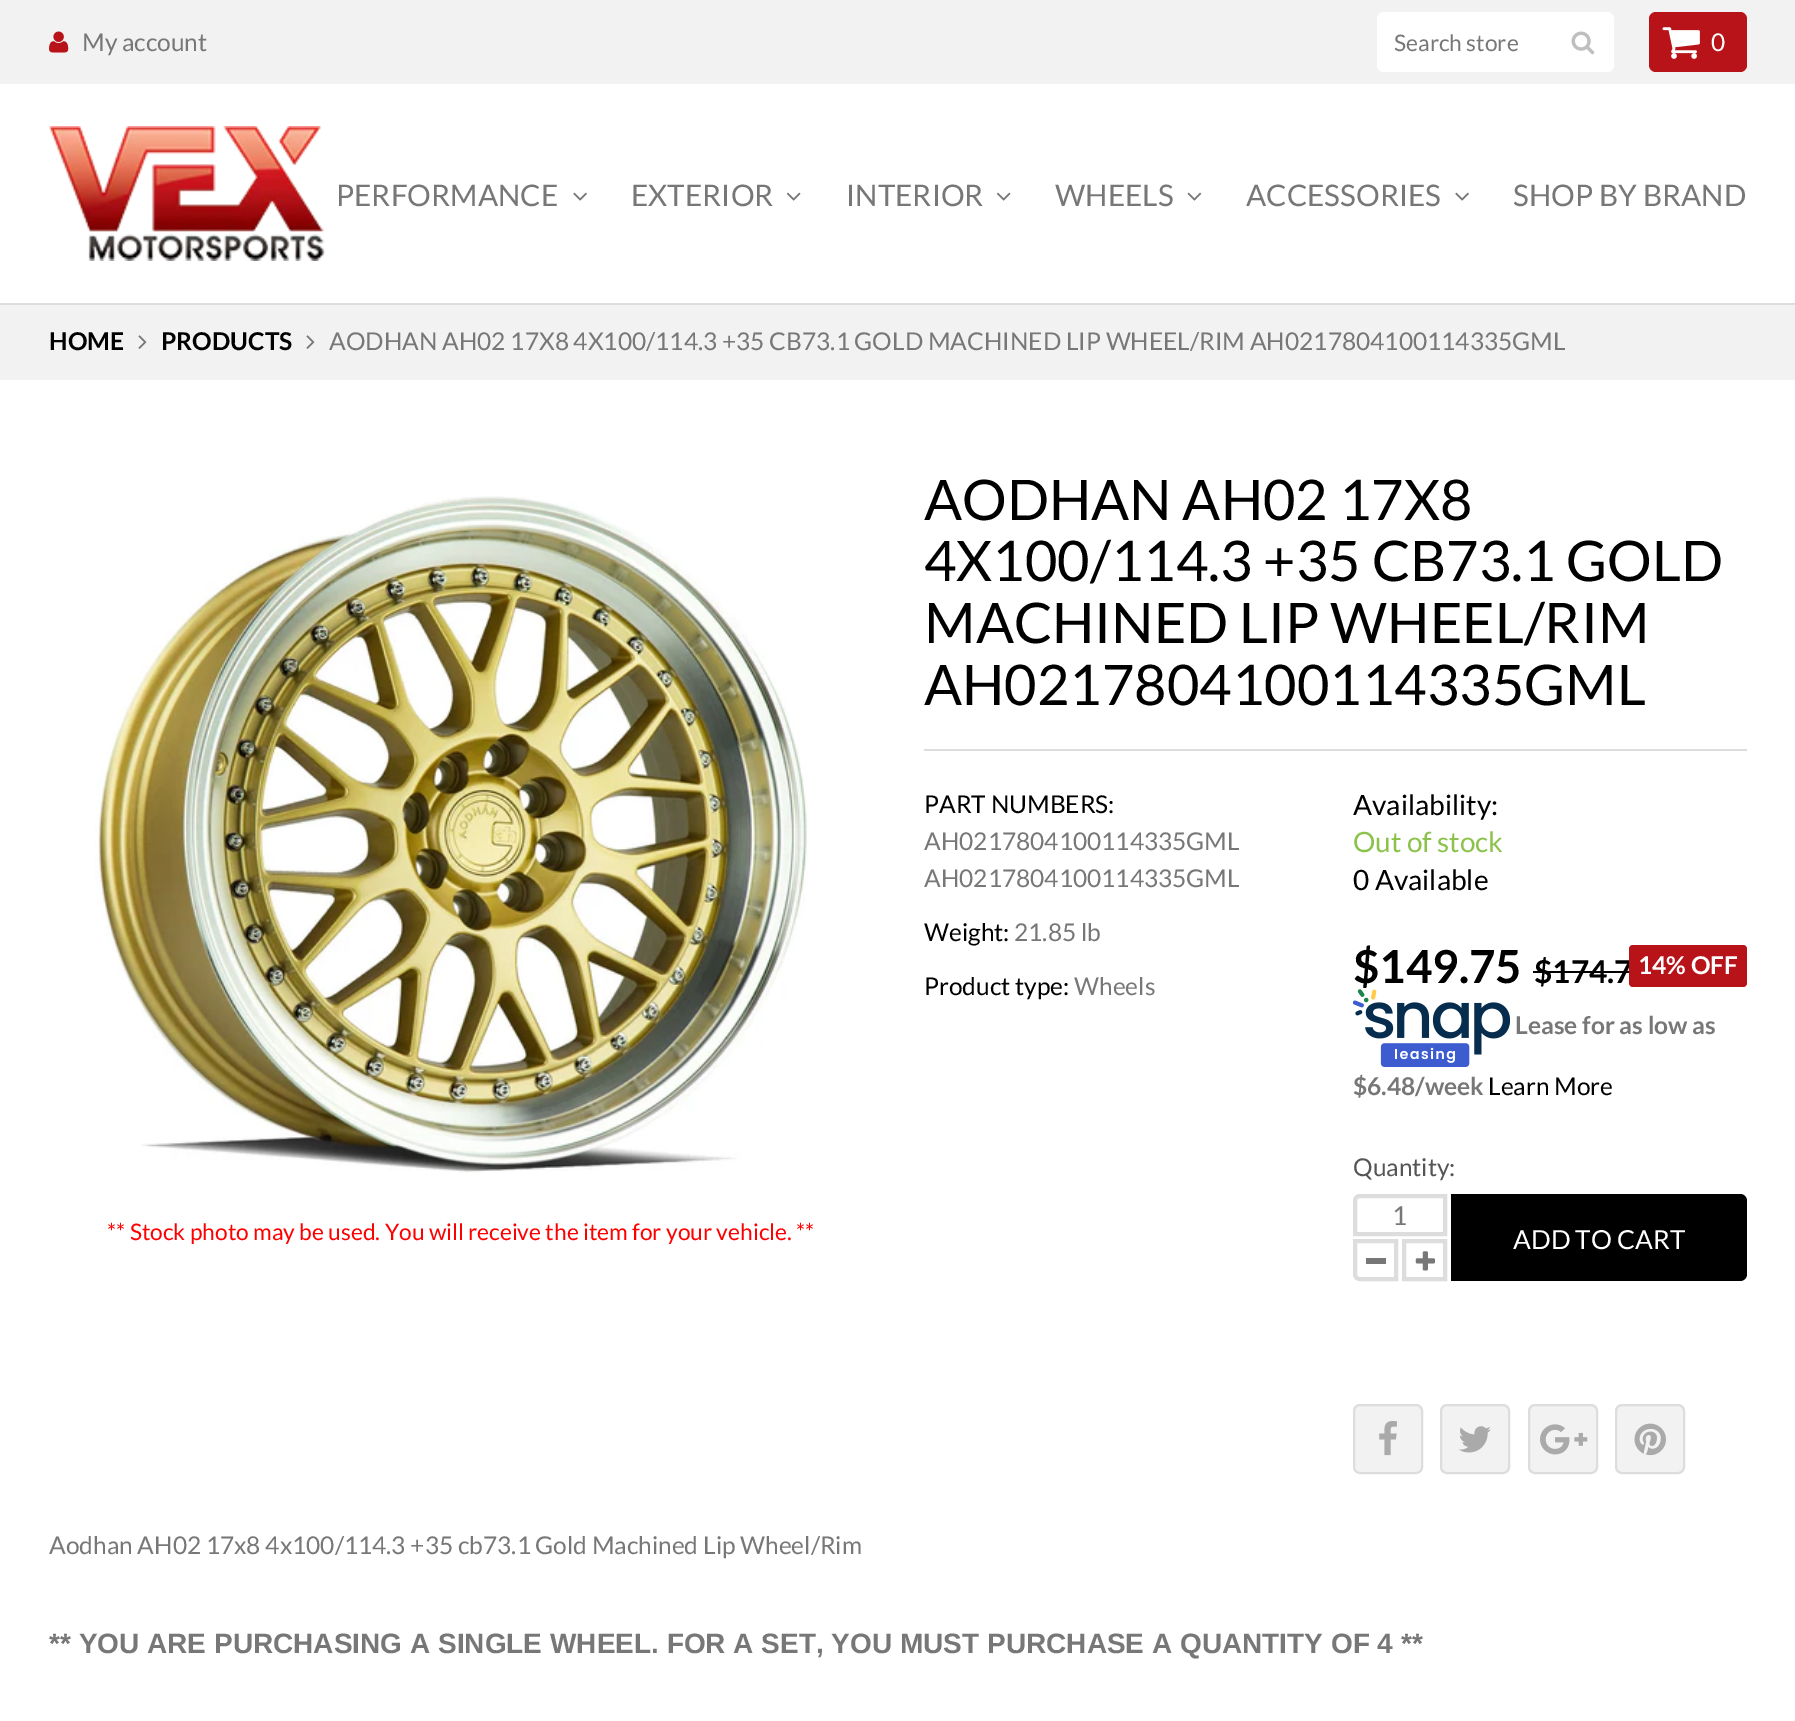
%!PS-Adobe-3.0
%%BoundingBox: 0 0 1795 1721
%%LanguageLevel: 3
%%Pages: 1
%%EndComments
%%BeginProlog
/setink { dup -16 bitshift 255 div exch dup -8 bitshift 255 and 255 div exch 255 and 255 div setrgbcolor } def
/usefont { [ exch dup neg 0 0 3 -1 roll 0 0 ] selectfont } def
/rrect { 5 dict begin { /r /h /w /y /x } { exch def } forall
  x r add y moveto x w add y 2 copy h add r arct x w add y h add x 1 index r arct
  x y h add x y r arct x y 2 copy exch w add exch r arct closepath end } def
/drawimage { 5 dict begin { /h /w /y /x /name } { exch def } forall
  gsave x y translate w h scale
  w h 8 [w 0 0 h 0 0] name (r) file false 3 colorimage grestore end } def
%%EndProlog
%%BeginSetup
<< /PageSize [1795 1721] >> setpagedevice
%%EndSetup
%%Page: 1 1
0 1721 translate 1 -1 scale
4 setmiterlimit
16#FFFFFF setink
0 0 1795 1721 rectfill
16#F2F2F2 setink
0 0 1795 84 rectfill
(img1.raw) 49 31 20 22 drawimage
/Lato-Regular 24.5 usefont
16#777777 setink
82 51 moveto (My account) show
16#FFFFFF setink
1377 12 237 60 7 rrect fill
/Lato-Regular 22.75 usefont
16#777777 setink
1394 51 moveto (Search store) show
(img2.raw) 1571 31 24 24 drawimage
16#B81319 setink
1649 12 98 60 7 rrect fill
(img3.raw) 1662 27 38 32 drawimage
/Lato-Regular 24.5 usefont
16#FFFFFF setink
1711 51 moveto (0) show
16#DDDDDD setink
0 303 moveto 0 305 lineto 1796 305 lineto 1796 86 lineto 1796 303 lineto closepath fill
(img4.raw) 49 126 276 135 drawimage
/Lato-Regular 29.75 usefont
16#777777 setink
336 206 moveto (PERFORMANCE) show
(img5.raw) 573 192 14 9 drawimage
631 206 moveto (EXTERIOR) show
(img6.raw) 786 192 15 9 drawimage
846 206 moveto (INTERIOR) show
(img6.raw) 996 192 15 9 drawimage
1055 206 moveto (WHEELS) show
(img7.raw) 1187 192 15 9 drawimage
1246 206 moveto (ACCESSORIES) show
(img5.raw) 1455 192 14 9 drawimage
1513 206 moveto (SHOP BY BRAND) show
16#F2F2F2 setink
0 305 1795 75 rectfill
/Lato-Bold 24.5 usefont
16#000000 setink
49 350 moveto (HOME) show
(img8.raw) 138 335 9 14 drawimage
161 350 moveto (PRODUCTS) show
(img8.raw) 306 335 9 14 drawimage
/Lato-Regular 24.5 usefont
16#777777 setink
329 350 moveto (AODHAN AH02 17X8 4X100/114.3 +35 CB73.1 GOLD MACHINED LIP WHEEL/RIM AH0217804100114335GML) show
(img9.raw) 95 496 713 677 drawimage
/Lato-Regular 22.75 usefont
16#FF0000 setink
107 1240 moveto (** Stock photo may be used. You will receive the item for your vehicle. **) show
/Lato-Regular 56 usefont
16#000000 setink
[
    [(AODHAN AH02 17X8) 924 520]
    [(4X100/114.3 +35 CB73.1 GOLD) 924 581]
    [(MACHINED LIP WHEEL/RIM) 924 643]
    [(AH0217804100114335GML) 924 705]
] { aload pop moveto show } forall
16#DDDDDD setink
924 749 823 2 rectfill
/Lato-Regular 24.5 usefont
16#000000 setink
924 813 moveto (PART NUMBERS:) show
16#777777 setink
924 850 moveto (AH0217804100114335GML) show
924 887 moveto (AH0217804100114335GML) show
16#000000 setink
924 941 moveto (Weight:) show
16#777777 setink
1014 941 moveto (21.85 lb) show
16#000000 setink
924 995 moveto (Product type:) show
16#777777 setink
1074 995 moveto (Wheels) show
/Lato-Regular 28 usefont
16#000000 setink
1353 815 moveto (Availability:) show
16#8BC34A setink
1353 852 moveto (Out of stock) show
16#000000 setink
1353 890 moveto (0 Available) show
/Lato-Bold 45.5 usefont
1353 983 moveto ($149.75) show
/Lato-Bold 31.5 usefont
1534 983 moveto ($174.7) show
1533 971 96 2 rectfill
16#B81319 setink
1629 945 118 42 4 rrect fill
/Lato-Bold 24.5 usefont
16#FFFFFF setink
1638 974 moveto (14% OFF) show
(img10.raw) 1353 989 157 78 drawimage
16#777777 setink
1515 1034 moveto (Lease for as low as) show
1353 1095 moveto ($6.48/week) show
/Lato-Regular 24.5 usefont
16#000000 setink
1488 1095 moveto (Learn More) show
16#555555 setink
1353 1176 moveto (Quantity:) show
16#DDDDDD setink
4 setlinewidth
1360 1196 moveto 1445 1196 lineto 1445 1234 lineto 1355 1234 lineto 1355 1201 lineto 1355 1198 1357 1196 1360 1196 curveto closepath stroke
/Lato-Regular 26.25 usefont
16#777777 setink
1392 1225 moveto (1) show
16#DDDDDD setink
1355 1241 moveto 1396 1241 lineto 1396 1279 lineto 1360 1279 lineto 1357 1279 1355 1277 1355 1274 curveto closepath stroke
16#777777 setink
1366 1258 20 6 rectfill
16#DDDDDD setink
1404 1241 41 38 rectstroke
(img11.raw) 1415 1251 20 20 drawimage
16#000000 setink
1451 1194 moveto 1740 1194 lineto 1744 1194 1747 1197 1747 1201 curveto 1747 1274 lineto 1747 1278 1744 1281 1740 1281 curveto 1451 1281 lineto closepath fill
16#FFFFFF setink
1513 1249 moveto (ADD TO CART) show
16#F2F2F2 setink
1354 1405 68 68 6 rrect gsave fill grestore
16#DDDDDD setink
2 setlinewidth
stroke
(img12.raw) 1379 1421 18 35 drawimage
16#F2F2F2 setink
1441 1405 68 68 6 rrect gsave fill grestore
16#DDDDDD setink
stroke
(img13.raw) 1459 1426 32 27 drawimage
16#F2F2F2 setink
1529 1405 68 68 6 rrect gsave fill grestore
16#DDDDDD setink
stroke
(img14.raw) 1540 1424 48 31 drawimage
16#F2F2F2 setink
1616 1405 68 68 6 rrect gsave fill grestore
16#DDDDDD setink
stroke
(img15.raw) 1634 1423 32 33 drawimage
/Lato-Regular 24.5 usefont
16#777777 setink
49 1554 moveto (Aodhan AH02 17x8 4x100/114.3 +35 cb73.1 Gold Machined Lip Wheel/Rim) show
/LiberationSans-Bold 28 usefont
49 1653 moveto (** YOU ARE PURCHASING A SINGLE WHEEL. FOR A SET, YOU MUST PURCHASE A QUANTITY OF 4 **) show
showpage
%%EOF
